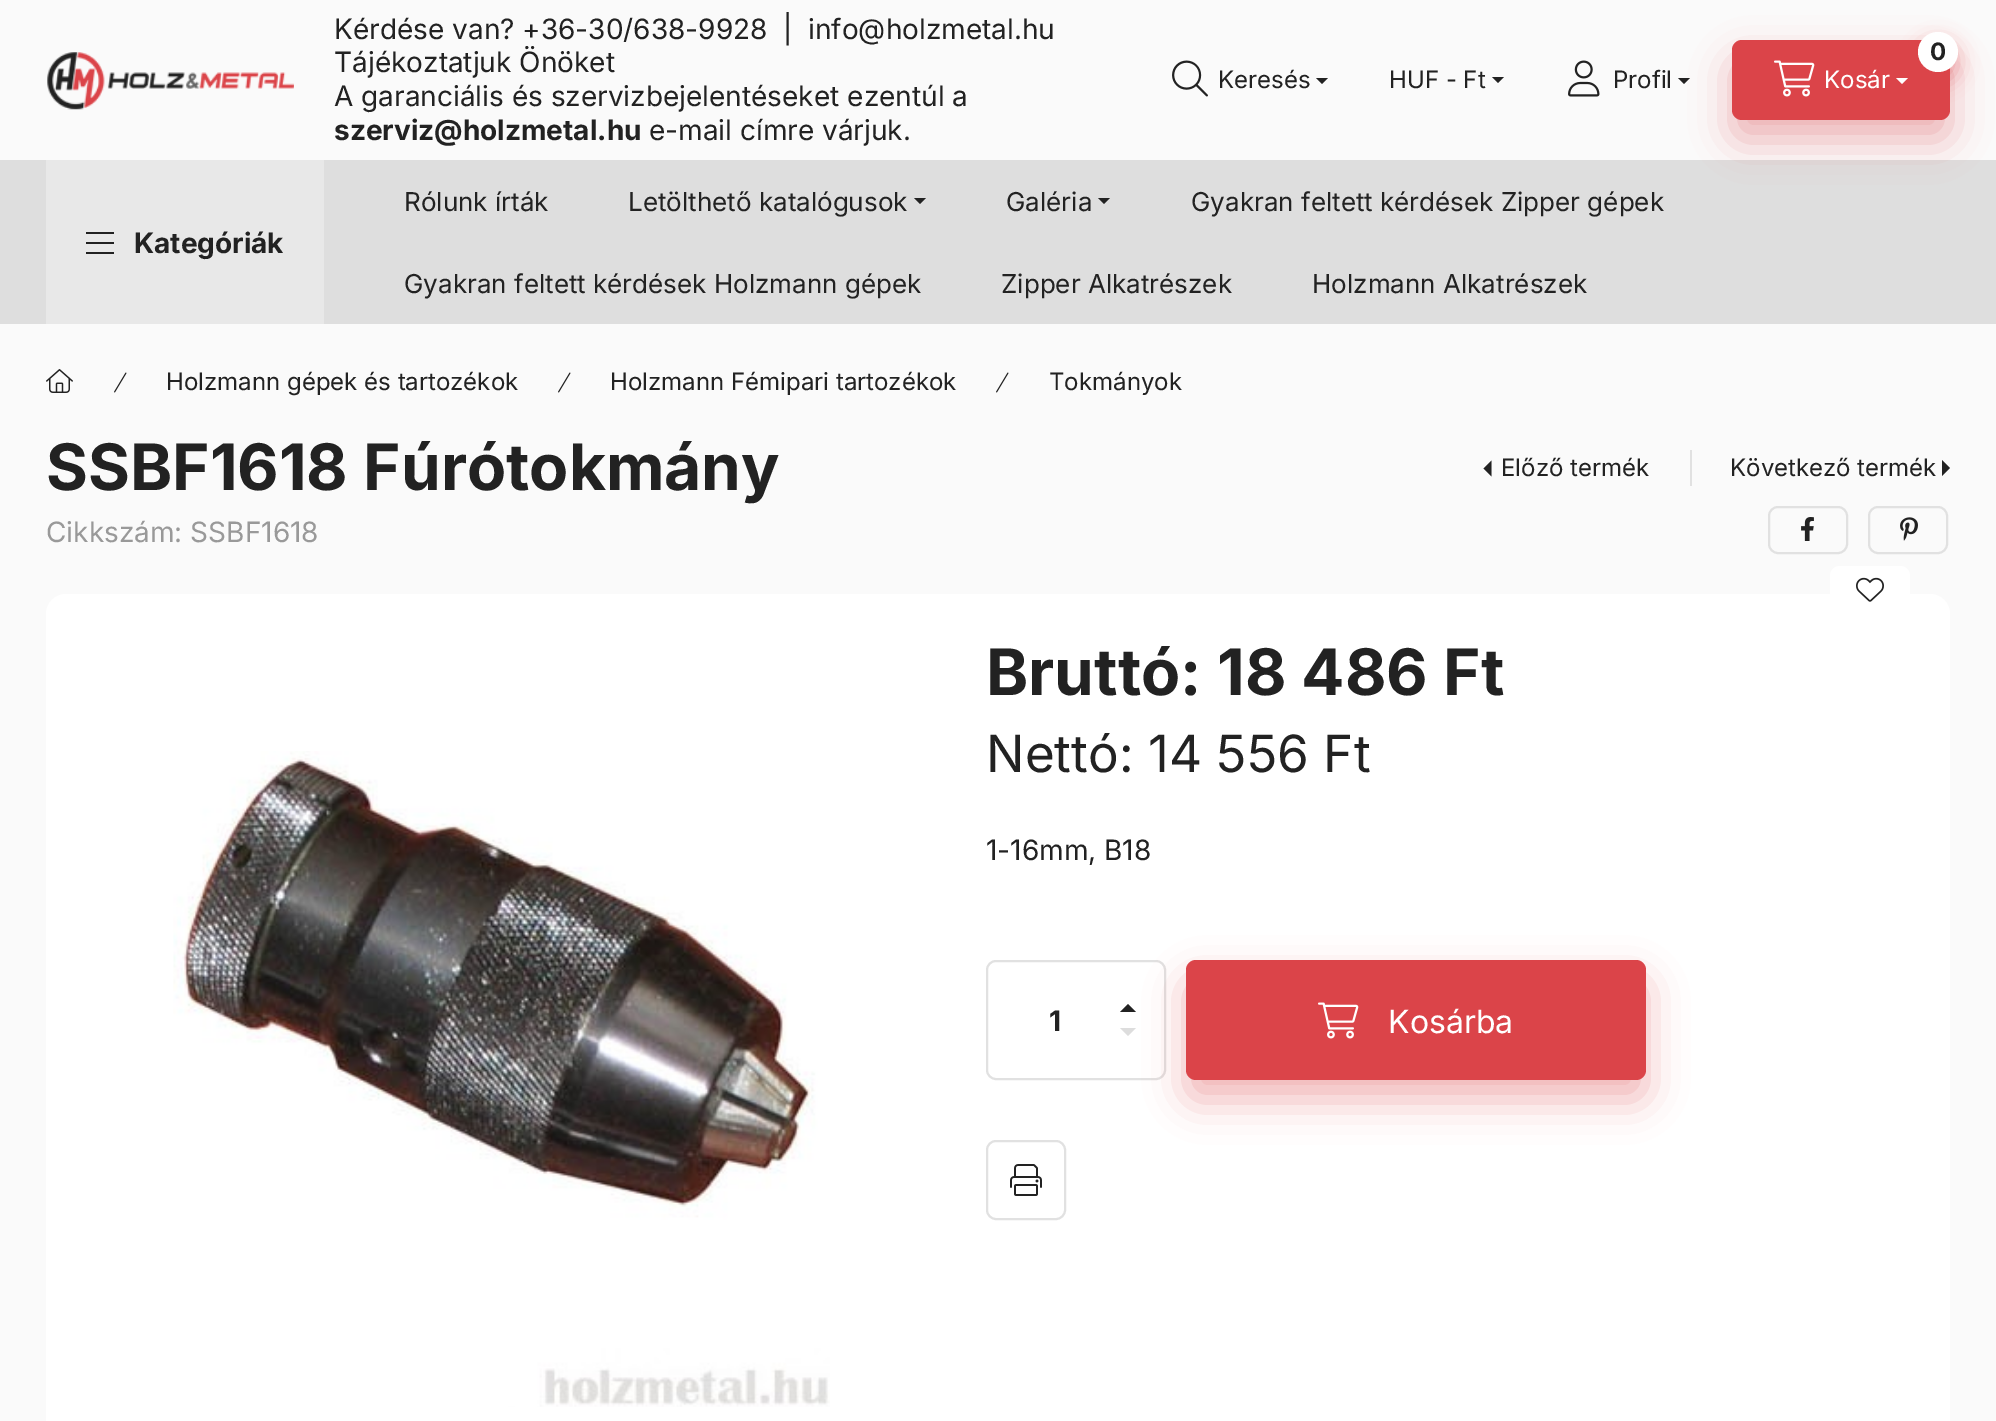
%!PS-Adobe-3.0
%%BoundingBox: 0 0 1996 1421
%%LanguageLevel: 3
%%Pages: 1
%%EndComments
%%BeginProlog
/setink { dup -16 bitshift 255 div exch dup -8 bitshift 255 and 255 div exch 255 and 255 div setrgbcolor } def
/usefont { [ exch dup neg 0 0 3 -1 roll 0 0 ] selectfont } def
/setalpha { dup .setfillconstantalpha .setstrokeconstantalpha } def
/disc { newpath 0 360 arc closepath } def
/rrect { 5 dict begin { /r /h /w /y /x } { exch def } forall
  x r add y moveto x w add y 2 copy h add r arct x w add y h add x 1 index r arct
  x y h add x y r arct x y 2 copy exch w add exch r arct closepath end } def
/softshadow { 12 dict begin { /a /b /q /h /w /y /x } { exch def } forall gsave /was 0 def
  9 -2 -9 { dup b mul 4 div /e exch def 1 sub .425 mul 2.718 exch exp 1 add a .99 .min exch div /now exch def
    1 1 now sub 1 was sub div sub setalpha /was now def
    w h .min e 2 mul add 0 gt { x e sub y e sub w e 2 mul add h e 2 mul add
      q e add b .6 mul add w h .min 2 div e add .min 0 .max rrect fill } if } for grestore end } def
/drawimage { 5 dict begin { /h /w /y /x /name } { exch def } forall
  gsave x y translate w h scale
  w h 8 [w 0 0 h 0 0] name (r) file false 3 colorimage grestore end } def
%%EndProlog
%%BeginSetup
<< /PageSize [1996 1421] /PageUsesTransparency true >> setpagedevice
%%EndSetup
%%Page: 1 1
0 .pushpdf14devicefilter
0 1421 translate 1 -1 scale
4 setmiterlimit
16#FAFAFA setink
0 0 1996 1421 rectfill
(img1.raw) 47 52 247 58 drawimage
/Inter-Regular 28 usefont
16#222222 setink
[
    [(Kérdése van? +36-30/638-9928) 334 39]
    [(|) 783 39]
    [(info@holzmetal.hu) 808 39]
    [(Tájékoztatjuk Önöket) 334 72]
    [(A garanciális és szervizbejelentéseket ezentúl a) 334 106]
] { aload pop moveto show } forall
/Inter-Bold 28 usefont
334 140 moveto (szerviz@holzmetal.hu) show
/Inter-Regular 28 usefont
649 140 moveto (e-mail címre várjuk.) show
(img2.raw) 1172 60 36 37 drawimage
/Inter-Regular 24 usefont
1218 88 moveto (Keresés) show
1316 78 moveto 1328 78 lineto 1322 84 lineto closepath fill
1389 88 moveto (HUF - Ft) show
1492 77 moveto 1504 77 lineto 1498 83 lineto closepath fill
(img3.raw) 1568 60 32 37 drawimage
1613 88 moveto (Profil) show
16#DEDEDE setink
0 160 1996 164 rectfill
16#DB4449 setink
1732 60 218 80 10 20 0.4 softshadow
16#222222 setink
1678 78 moveto 1690 78 lineto 1684 84 lineto closepath fill
16#DB4449 setink
1732 40 218 80 10 rrect fill
1918 42 40 40 20 10 0.4 softshadow
16#FFFFFF setink
1938 52 20 disc fill
/Inter-Bold 24 usefont
16#222222 setink
1930 60 moveto (0) show
(img4.raw) 1774 60 41 37 drawimage
/Inter-Regular 24 usefont
16#FFFFFF setink
1824 88 moveto (Kosár) show
1896 78 moveto 1908 78 lineto 1902 84 lineto closepath fill
[
    [46 160 278 164 16#E8E8E8]
    [86 232 28 2 16#222222]
    [86 242 28 2 16#222222]
    [86 252 28 2 16#222222]
] { aload pop setink rectfill } forall
/Inter-Bold 28 usefont
134 253 moveto (Kategóriák) show
/Inter-Regular 26 usefont
404 211 moveto (Rólunk írták) show
628 211 moveto (Letölthető katalógusok) show
914 198 moveto 926 198 lineto 920 204 lineto closepath fill
1006 211 moveto (Galéria) show
1098 198 moveto 1110 198 lineto 1104 204 lineto closepath fill
[
    [(Gyakran feltett kérdések Zipper gépek) 1191 211]
    [(Gyakran feltett kérdések Holzmann gépek) 404 293]
    [(Zipper Alkatrészek) 1001 293]
    [(Holzmann Alkatrészek) 1312 293]
] { aload pop moveto show } forall
(img5.raw) 46 369 27 24 drawimage
(img6.raw) 114 372 13 21 drawimage
/Inter-Regular 24 usefont
166 390 moveto (Holzmann gépek és tartozékok) show
(img6.raw) 558 372 13 21 drawimage
610 390 moveto (Holzmann Fémipari tartozékok) show
(img6.raw) 996 372 13 21 drawimage
1049 390 moveto (Tokmányok) show
/Inter-Bold 64 usefont
46 490 moveto (SSBF1618 Fúrótokmány) show
1491.5 476.5 moveto 1491.5 460.5 lineto 1483.5 468.5 lineto closepath fill
/Inter-Regular 24 usefont
1501 476 moveto (Előző termék) show
16#E1E1E1 setink
1690 450 2 36 rectfill
16#222222 setink
1730 476 moveto (Következő termék) show
1942 476 moveto 1942 460 lineto 1950 468 lineto closepath fill
/Inter-Regular 28 usefont
16#999999 setink
46 542 moveto (Cikkszám: SSBF1618) show
16#E1E1E1 setink
2 setlinewidth
1769 507 78 46 9 rrect stroke
(img7.raw) 1801 517 13 24 drawimage
1869 507 78 46 9 rrect stroke
(img8.raw) 1900 517 18 24 drawimage
16#FFFFFF setink
46 594 1904 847 20 rrect fill
1830 566 80 48 10 rrect fill
(img9.raw) 1856 577 28 25 drawimage
(img10.raw) 173 751 657 656 drawimage
/Inter-Bold 64 usefont
16#222222 setink
986 695 moveto (Bruttó: 18 486 Ft) show
/Inter-Regular 51.25 usefont
986 772 moveto (Nettó: 14 556 Ft) show
/Inter-Regular 28 usefont
986 860 moveto (1-16mm, B18) show
16#E1E1E1 setink
987 961 178 118 9 rrect stroke
/Inter-Bold 28 usefont
16#222222 setink
1049 1031 moveto (1) show
1136 1012 moveto 1120 1012 lineto 1128 1004 lineto closepath fill
16#DDDDDD setink
1120 1028 moveto 1136 1028 lineto 1128 1036 lineto closepath fill
16#DB4449 setink
1186 980 460 120 10 20 0.4 softshadow
1186 960 460 120 10 rrect fill
(img4.raw) 1318 1002 41 37 drawimage
/Inter-Regular 32 usefont
16#FFFFFF setink
1388 1033 moveto (Kosárba) show
16#E1E1E1 setink
987 1141 78 78 9 rrect stroke
(img11.raw) 1010 1164 32 32 drawimage
.poppdf14devicefilter showpage
%%EOF
